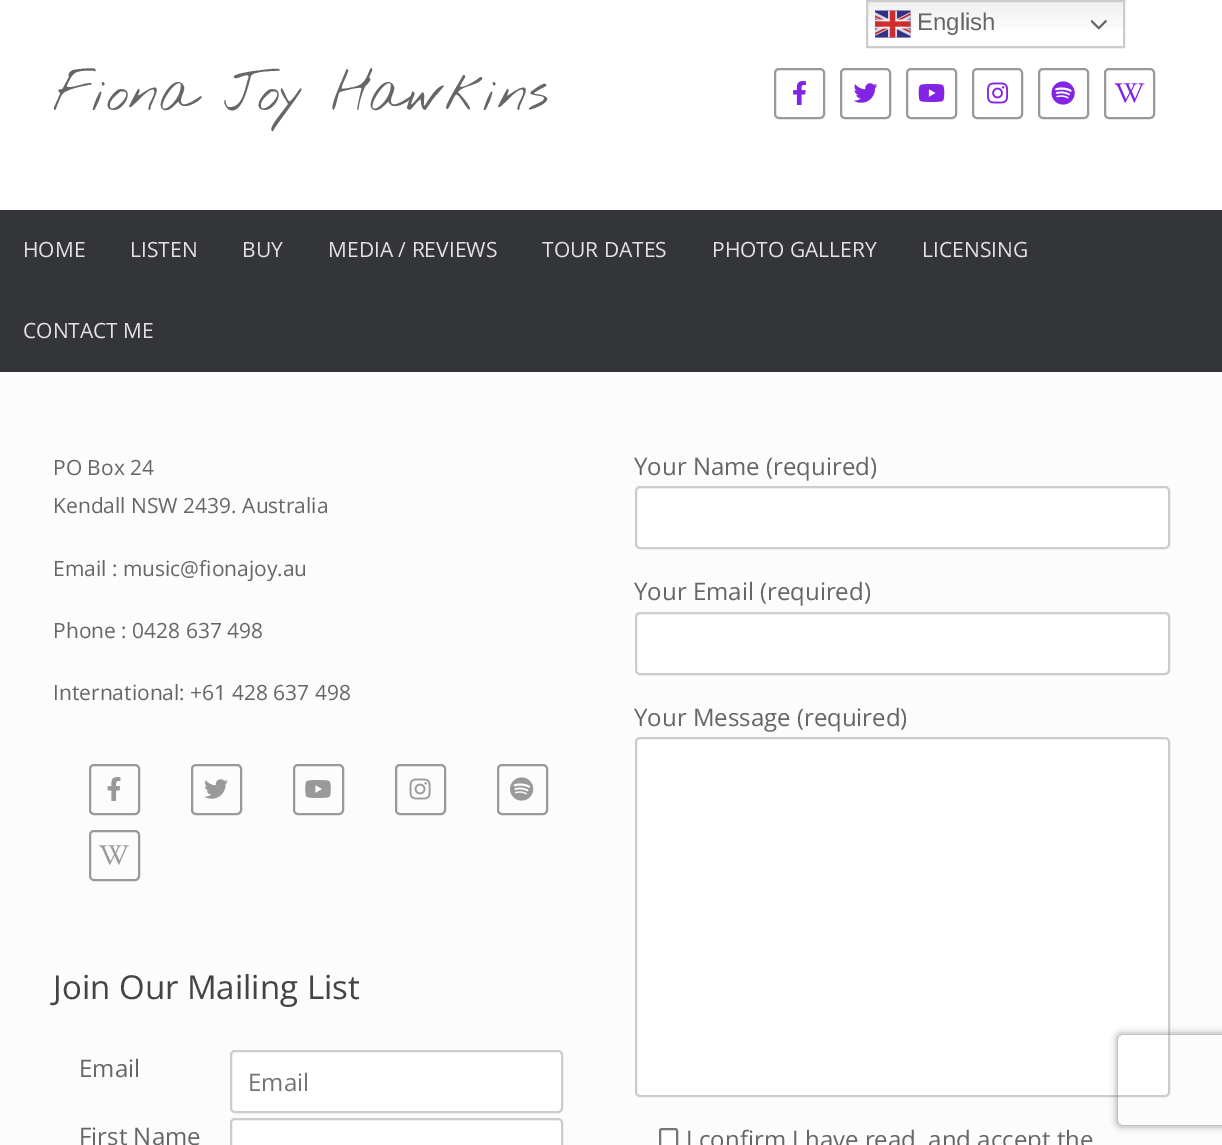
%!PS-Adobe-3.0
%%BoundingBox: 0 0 1222 1145
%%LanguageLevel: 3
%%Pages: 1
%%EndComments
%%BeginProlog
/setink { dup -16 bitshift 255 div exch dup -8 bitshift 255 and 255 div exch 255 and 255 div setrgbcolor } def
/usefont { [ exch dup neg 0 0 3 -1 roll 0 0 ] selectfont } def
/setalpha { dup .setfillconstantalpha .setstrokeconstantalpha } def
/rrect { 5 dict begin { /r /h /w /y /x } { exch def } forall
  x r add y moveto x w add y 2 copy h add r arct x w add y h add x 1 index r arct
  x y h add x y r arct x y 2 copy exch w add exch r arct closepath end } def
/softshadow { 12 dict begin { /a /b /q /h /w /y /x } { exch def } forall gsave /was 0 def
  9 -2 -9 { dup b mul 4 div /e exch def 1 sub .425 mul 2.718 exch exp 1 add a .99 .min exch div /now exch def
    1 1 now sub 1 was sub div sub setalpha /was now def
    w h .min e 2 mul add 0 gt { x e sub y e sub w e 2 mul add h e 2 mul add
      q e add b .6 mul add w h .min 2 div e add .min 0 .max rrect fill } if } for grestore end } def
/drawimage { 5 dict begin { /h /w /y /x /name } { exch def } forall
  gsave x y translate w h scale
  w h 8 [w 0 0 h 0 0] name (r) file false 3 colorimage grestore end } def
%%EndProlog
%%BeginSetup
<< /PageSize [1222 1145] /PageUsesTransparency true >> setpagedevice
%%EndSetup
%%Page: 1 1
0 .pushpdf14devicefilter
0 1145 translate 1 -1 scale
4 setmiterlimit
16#FFFFFF setink
0 0 1222 1145 rectfill
gsave 868 2 moveto 1123 2 lineto 1123 28 lineto 868 28 lineto closepath clip newpath
<< /ShadingType 2 /ColorSpace /DeviceRGB /Coords [995 0 995 48] /Extend [true true] /Function << /FunctionType 3 /Domain [0 1] /Functions [<< /FunctionType 2 /Domain [0 1] /C0 [0.937 0.937 0.937] /C1 [1 1 1] /N 1 >> << /FunctionType 2 /Domain [0 1] /C0 [1 1 1] /C1 [1 1 1] /N 1 >>] /Bounds [0.7] /Encode [0 1 0 1] >> >> shfill grestore
16#CCCCCC setink
2 setlinewidth
867 1 257 46 rectstroke
(img1.raw) 875 10 36 28 drawimage
/LiberationSans-Regular 24 usefont
16#666666 setink
917 30 moveto (English) show
(img2.raw) 1091 20 16 10 drawimage
/NothingYouCouldDo-Thin 54 usefont
53 110 moveto (Fiona Joy Hawkins) show
16#999999 setink
775 69 49 49 4 rrect stroke
(img3.raw) 793 81 13 24 drawimage
841 69 49 49 4 rrect stroke
(img4.raw) 853 83 25 20 drawimage
907 69 49 49 4 rrect stroke
(img5.raw) 918 84 27 18 drawimage
973 69 49 49 4 rrect stroke
(img6.raw) 987 82 22 22 drawimage
1039 69 49 49 4 rrect stroke
(img7.raw) 1051 81 24 24 drawimage
1105 69 49 49 4 rrect stroke
(img8.raw) 1114 83 31 20 drawimage
16#343538 setink
0 210 1222 162 rectfill
/OpenSans-Regular 21 usefont
16#E2E2E2 setink
[
    [(HOME) 23 257]
    [(LISTEN) 130 257]
    [(BUY) 242 257]
    [(MEDIA / REVIEWS) 328 257]
    [(TOUR DATES) 542 257]
    [(PHOTO GALLERY) 712 257]
    [(LICENSING) 922 257]
    [(CONTACT ME) 23 338]
] { aload pop moveto show } forall
16#FCFCFC setink
0 372 1222 773 rectfill
16#666666 setink
[
    [(PO Box 24) 53 475]
    [(Kendall NSW 2439. Australia) 53 513]
    [(Email : music@fionajoy.au) 53 576]
    [(Phone : 0428 637 498) 53 638]
    [(International: +61 428 637 498) 53 700]
] { aload pop moveto show } forall
16#999999 setink
90 765 49 49 4 rrect stroke
(img9.raw) 107 777 14 24 drawimage
192 765 49 49 4 rrect stroke
(img10.raw) 204 779 24 20 drawimage
294 765 49 49 4 rrect stroke
(img11.raw) 305 780 26 18 drawimage
396 765 49 49 4 rrect stroke
(img12.raw) 409 778 22 22 drawimage
498 765 49 49 4 rrect stroke
(img13.raw) 510 777 24 24 drawimage
90 831 49 49 4 rrect stroke
(img14.raw) 99 845 30 20 drawimage
/OpenSans-Regular 33 usefont
16#444444 setink
53 999 moveto (Join Our Mailing List) show
/OpenSans-Regular 24 usefont
16#666666 setink
79 1077 moveto (Email) show
16#FFFFFF setink
231 1051 331 61 4 rrect gsave fill grestore
16#CCCCCC setink
stroke
16#757575 setink
248 1091 moveto (Email) show
16#666666 setink
79 1145 moveto (First Name) show
16#FFFFFF setink
231 1119 331 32 4 rrect gsave fill grestore
16#CCCCCC setink
stroke
16#666666 setink
634 475 moveto (Your Name \(required\)) show
16#FFFFFF setink
636 487 533 61 4 rrect gsave fill grestore
16#CCCCCC setink
stroke
16#666666 setink
634 600 moveto (Your Email \(required\)) show
16#FFFFFF setink
636 613 533 61 4 rrect gsave fill grestore
16#CCCCCC setink
stroke
16#666666 setink
634 726 moveto (Your Message \(required\)) show
16#FFFFFF setink
636 738 533 358 4 rrect gsave fill grestore
16#CCCCCC setink
stroke
16#FFFFFF setink
660 1129 17 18 2 rrect gsave fill grestore
16#767676 setink
stroke
16#666666 setink
686 1148 moveto (I confirm I have read, and accept the) show
gsave
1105 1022 moveto 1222 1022 lineto 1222 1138 lineto 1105 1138 lineto closepath 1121 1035 moveto 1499 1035 lineto 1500.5 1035 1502 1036.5 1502 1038 curveto 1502 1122 lineto 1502 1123.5 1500.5 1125 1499 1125 curveto 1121 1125 lineto 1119.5 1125 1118 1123.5 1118 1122 curveto 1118 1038 lineto 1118 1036.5 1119.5 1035 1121 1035 curveto closepath eoclip newpath
16#808080 setink
1118 1035 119 90 3 4 1 softshadow
grestore
.poppdf14devicefilter showpage
%%EOF
